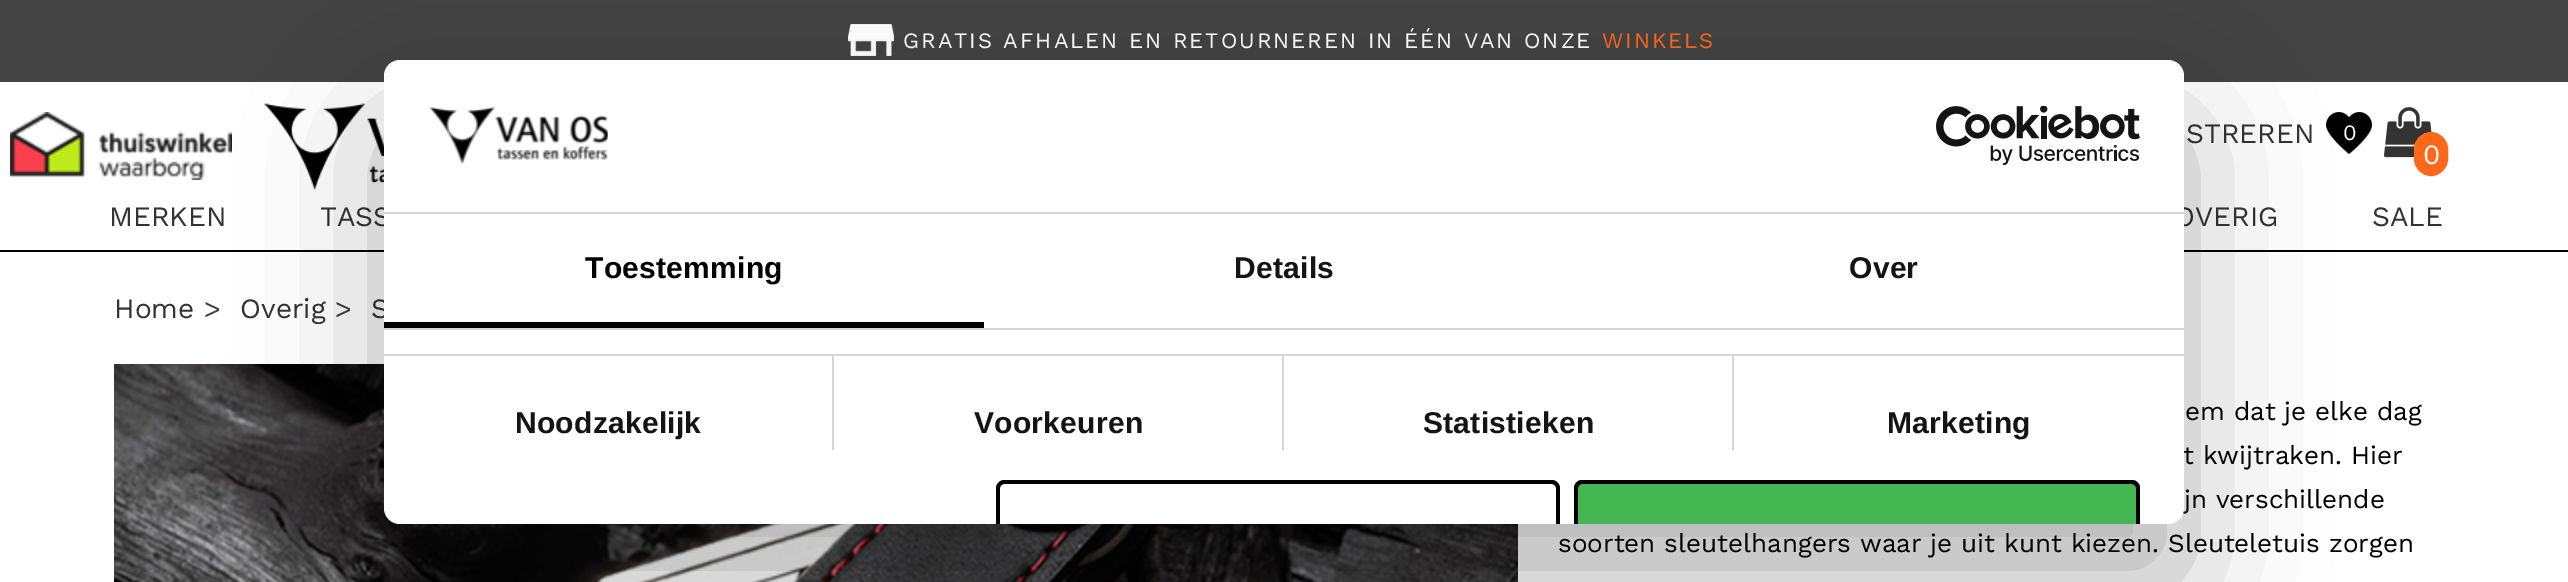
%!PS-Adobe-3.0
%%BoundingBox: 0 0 2568 582
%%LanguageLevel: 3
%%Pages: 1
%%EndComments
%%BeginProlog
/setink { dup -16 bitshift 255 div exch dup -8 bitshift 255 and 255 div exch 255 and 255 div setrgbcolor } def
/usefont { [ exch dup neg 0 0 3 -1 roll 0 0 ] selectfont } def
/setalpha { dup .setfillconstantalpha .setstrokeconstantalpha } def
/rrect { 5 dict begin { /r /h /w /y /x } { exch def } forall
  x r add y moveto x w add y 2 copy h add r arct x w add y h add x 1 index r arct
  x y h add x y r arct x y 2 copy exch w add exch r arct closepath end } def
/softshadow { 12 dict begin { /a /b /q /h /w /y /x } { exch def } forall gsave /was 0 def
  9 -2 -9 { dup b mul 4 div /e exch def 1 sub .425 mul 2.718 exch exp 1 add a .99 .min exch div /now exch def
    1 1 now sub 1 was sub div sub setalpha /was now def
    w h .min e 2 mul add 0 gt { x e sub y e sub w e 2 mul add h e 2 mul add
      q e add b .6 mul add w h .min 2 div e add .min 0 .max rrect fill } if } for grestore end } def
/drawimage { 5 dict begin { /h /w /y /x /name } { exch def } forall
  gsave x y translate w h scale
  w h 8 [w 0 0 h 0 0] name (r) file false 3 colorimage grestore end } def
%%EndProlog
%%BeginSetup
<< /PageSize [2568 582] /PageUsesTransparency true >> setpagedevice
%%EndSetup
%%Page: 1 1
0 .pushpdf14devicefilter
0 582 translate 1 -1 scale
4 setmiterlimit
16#FFFFFF setink
0 0 2568 582 rectfill
16#444444 setink
0 0 2568 82 rectfill
(img1.raw) 848 24 46 32 drawimage
/WorkSans-Regular 22 usefont
16#FFFFFF setink
903 48 moveto 2 0 (GRATIS AFHALEN EN RETOURNEREN IN ÉÉN VAN ONZE) ashow
16#FF671A setink
1602 48 moveto 2 0 (WINKELS) ashow
(img2.raw) 10 112 222 68 drawimage
(img3.raw) 264 103 120 87 drawimage
/WorkSans-Regular 28 usefont
16#333333 setink
2186 143 moveto (STREREN) show
(img4.raw) 2326 112 46 42 drawimage
/WorkSans-Regular 22 usefont
16#FFFFFF setink
2343 140 moveto (0) show
(img5.raw) 2384 107 48 51 drawimage
16#FF671A setink
2415 133 32 42 16 rrect gsave fill grestore
2 setlinewidth
stroke
/WorkSans-Regular 28 usefont
16#FFFFFF setink
2423 164 moveto (0) show
16#000000 setink
0 250 2568 2 rectfill
16#333333 setink
[
    [(MERKEN) 109 226]
    [(TASS) 320 226]
    [(OVERIG) 2174 226]
    [(SALE) 2372 226]
    [(Home) 114 318]
] { aload pop moveto show } forall
16#424242 setink
204 318 moveto (>) show
16#333333 setink
240 318 moveto (Overig) show
16#424242 setink
335 318 moveto (>) show
16#333333 setink
371 318 moveto (S) show
(img6.raw) 114 364 1404 218 drawimage
/WorkSans-Regular 26 usefont
16#000000 setink
[
    [(em dat je elke dag) 2185 420]
    [(t kwijtraken. Hier) 2183 464]
    [(jn verschillende) 2184 508]
    [(soorten sleutelhangers waar je uit kunt kiezen. Sleuteletuis zorgen) 1558 552]
] { aload pop moveto show } forall
384 124 1800 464 16 68 0.3 softshadow
16#FFFFFF setink
384 60 1800 464 16 rrect fill
16#D6D6D6 setink
384 212 1800 2 rectfill
(img7.raw) 429 107 179 57 drawimage
(img8.raw) 1936 106 204 59 drawimage
384 328 1800 2 rectfill
16#000000 setink
384 322 600 6 rectfill
/LiberationSans-Bold 30 usefont
585 278 moveto 0.25 0 (Toestemming) ashow
16#141414 setink
1234 278 moveto 0.25 0 (Details) ashow
1849 278 moveto 0.25 0 (Over) ashow
16#D6D6D6 setink
384 354 1800 2 rectfill
832 356 2 94 rectfill
16#141414 setink
515 433 moveto 0.25 0 (Noodzakelijk) ashow
16#D6D6D6 setink
1282 356 2 94 rectfill
16#141414 setink
974 433 moveto 0.25 0 (Voorkeuren) ashow
16#D6D6D6 setink
1732 356 2 94 rectfill
16#141414 setink
1423 433 moveto 0.25 0 (Statistieken) ashow
1887 433 moveto 0.25 0 (Marketing) ashow
16#000000 setink
1004 480 moveto 1000 480 996 484 996 488 curveto 996 524 lineto 1000 524 lineto 1000 488 lineto 1000 486 1002 484 1004 484 curveto 1552 484 lineto 1554 484 1556 486 1556 488 curveto 1556 524 lineto 1560 524 lineto 1560 488 lineto 1560 484 1556 480 1552 480 curveto closepath fill
16#44B652 setink
1582 480 moveto 2132 480 lineto 2136.5 480 2140 483.5 2140 488 curveto 2140 524 lineto 1574 524 lineto 1574 488 lineto 1574 483.5 1577.5 480 1582 480 curveto closepath fill
16#000000 setink
1582 480 moveto 1578 480 1574 484 1574 488 curveto 1574 524 lineto 1578 524 lineto 1578 488 lineto 1578 486 1580 484 1582 484 curveto 2132 484 lineto 2134 484 2136 486 2136 488 curveto 2136 524 lineto 2140 524 lineto 2140 488 lineto 2140 484 2136 480 2132 480 curveto closepath fill
.poppdf14devicefilter showpage
%%EOF
